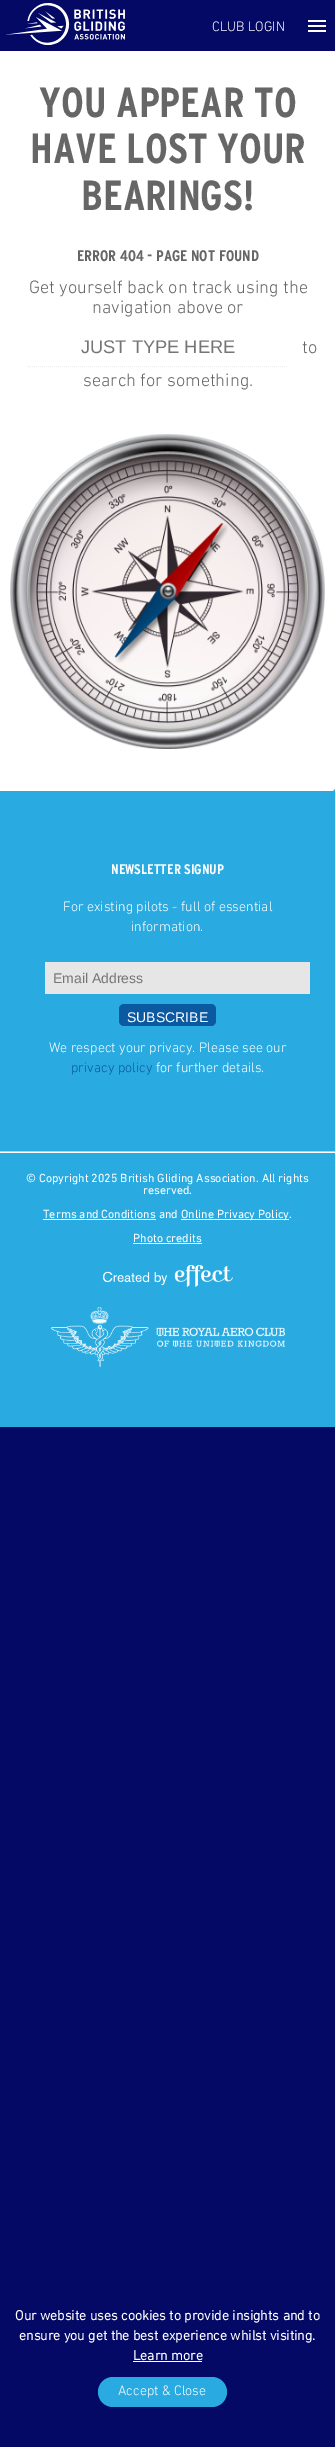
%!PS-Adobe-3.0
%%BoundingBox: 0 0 335 2447
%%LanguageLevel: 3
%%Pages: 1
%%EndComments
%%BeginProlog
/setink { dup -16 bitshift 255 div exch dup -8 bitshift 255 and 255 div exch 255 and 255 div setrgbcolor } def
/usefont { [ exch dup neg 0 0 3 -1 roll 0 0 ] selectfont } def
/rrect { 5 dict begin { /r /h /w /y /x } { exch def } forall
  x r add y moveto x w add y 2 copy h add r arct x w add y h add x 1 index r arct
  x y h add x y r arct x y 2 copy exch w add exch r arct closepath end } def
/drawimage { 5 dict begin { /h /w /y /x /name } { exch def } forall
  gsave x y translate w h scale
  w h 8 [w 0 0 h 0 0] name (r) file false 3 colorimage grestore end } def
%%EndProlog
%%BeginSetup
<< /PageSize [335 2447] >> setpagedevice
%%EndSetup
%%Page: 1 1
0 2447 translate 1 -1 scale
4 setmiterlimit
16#030965 setink
0 0 335 2447 rectfill
(img1.raw) 6 3 119 42 drawimage
/DINNext-Light 14 usefont
16#FFFFFF setink
212 31 moveto (CLUB LOGIN) show
[
    [308 25 18 2 16#FFFFFF]
    [308 20 18 2 16#FFFFFF]
    [308 30 18 2 16#FFFFFF]
    [0 51 335 740 16#FFFFFF]
] { aload pop setink rectfill } forall
/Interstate-Bold 42 usefont
16#666666 setink
[
    [(YOU APPEAR TO) 39 117]
    [(HAVE LOST YOUR) 30 163]
    [(BEARINGS!) 81 210]
] { aload pop moveto show } forall
/Interstate-Bold 15.4 usefont
77 261 moveto (ERROR 404 - PAGE NOT FOUND) show
/DINNext-Light 18.25 usefont
29 293 moveto (Get yourself back on track using the) show
92 313 moveto (navigation above or) show
16#EEEEEE setink
[1 1] 0 setdash
28 366.5 moveto 287 366.5 lineto stroke
/LiberationSans-Regular 18.25 usefont
16#757575 setink
81 353 moveto (JUST TYPE HERE) show
/DINNext-Light 18.25 usefont
16#666666 setink
302 353 moveto (to) show
83 386 moveto (search for something.) show
(img2.raw) 10 434 315 315 drawimage
(img3.raw) 114 523 114 140 drawimage
16#29ABE2 setink
0 791 335 636 rectfill
335 813 moveto 311 813 lineto 335 789 lineto closepath fill
/Interstate-Bold 14 usefont
16#FFFFFF setink
111 874 moveto (NEWSLETTER SIGNUP) show
/DINNext-Light 14 usefont
63 911 moveto (For existing pilots - full of essential) show
131 931 moveto (information.) show
16#E6E6E6 setink
45 962 265 32 rectfill
/LiberationSans-Regular 14 usefont
16#757575 setink
53 983 moveto (Email Address) show
16#0B5AA1 setink
119 1004 97 22 5 rrect fill
16#FFFFFF setink
127 1022 moveto (SUBSCRIBE) show
/DINNext-Light 14 usefont
49 1052 moveto (We respect your privacy. Please see our) show
16#0B5AA1 setink
71 1072 moveto (privacy policy) show
16#FFFFFF setink
156 1072 moveto (for further details.) show
0 1152 335 1 rectfill
16#CCCCCC setink
0 1151 335 1 rectfill
/DINNext-Regular 12 usefont
16#FFFFFF setink
[
    [(© Copyright 2025 British Gliding Association. All rights) 26 1182]
    [(reserved.) 143 1194]
    [(Terms and Conditions and) 43 1218]
] { aload pop moveto show } forall
43 1219 113 1 rectfill
181 1219 108 1 rectfill
181 1218 moveto (Online Privacy Policy.) show
133 1242 moveto (Photo credits) show
133 1243 69 1 rectfill
(img4.raw) 103 1265 130 22 drawimage
(img5.raw) 51 1307 234 60 drawimage
/DINNext-Bold 14 usefont
[
    [(Our website uses cookies to provide insights and to) 15 2320]
    [(ensure you get the best experience whilst visiting.) 19 2340]
    [(Learn more) 133 2360]
] { aload pop moveto show } forall
133 2361 69 1 rectfill
16#29ABE2 setink
98 2377 129 30 15 rrect fill
/DINNext-Light 14 usefont
16#FFFFFF setink
118 2395 moveto (Accept & Close) show
showpage
%%EOF
